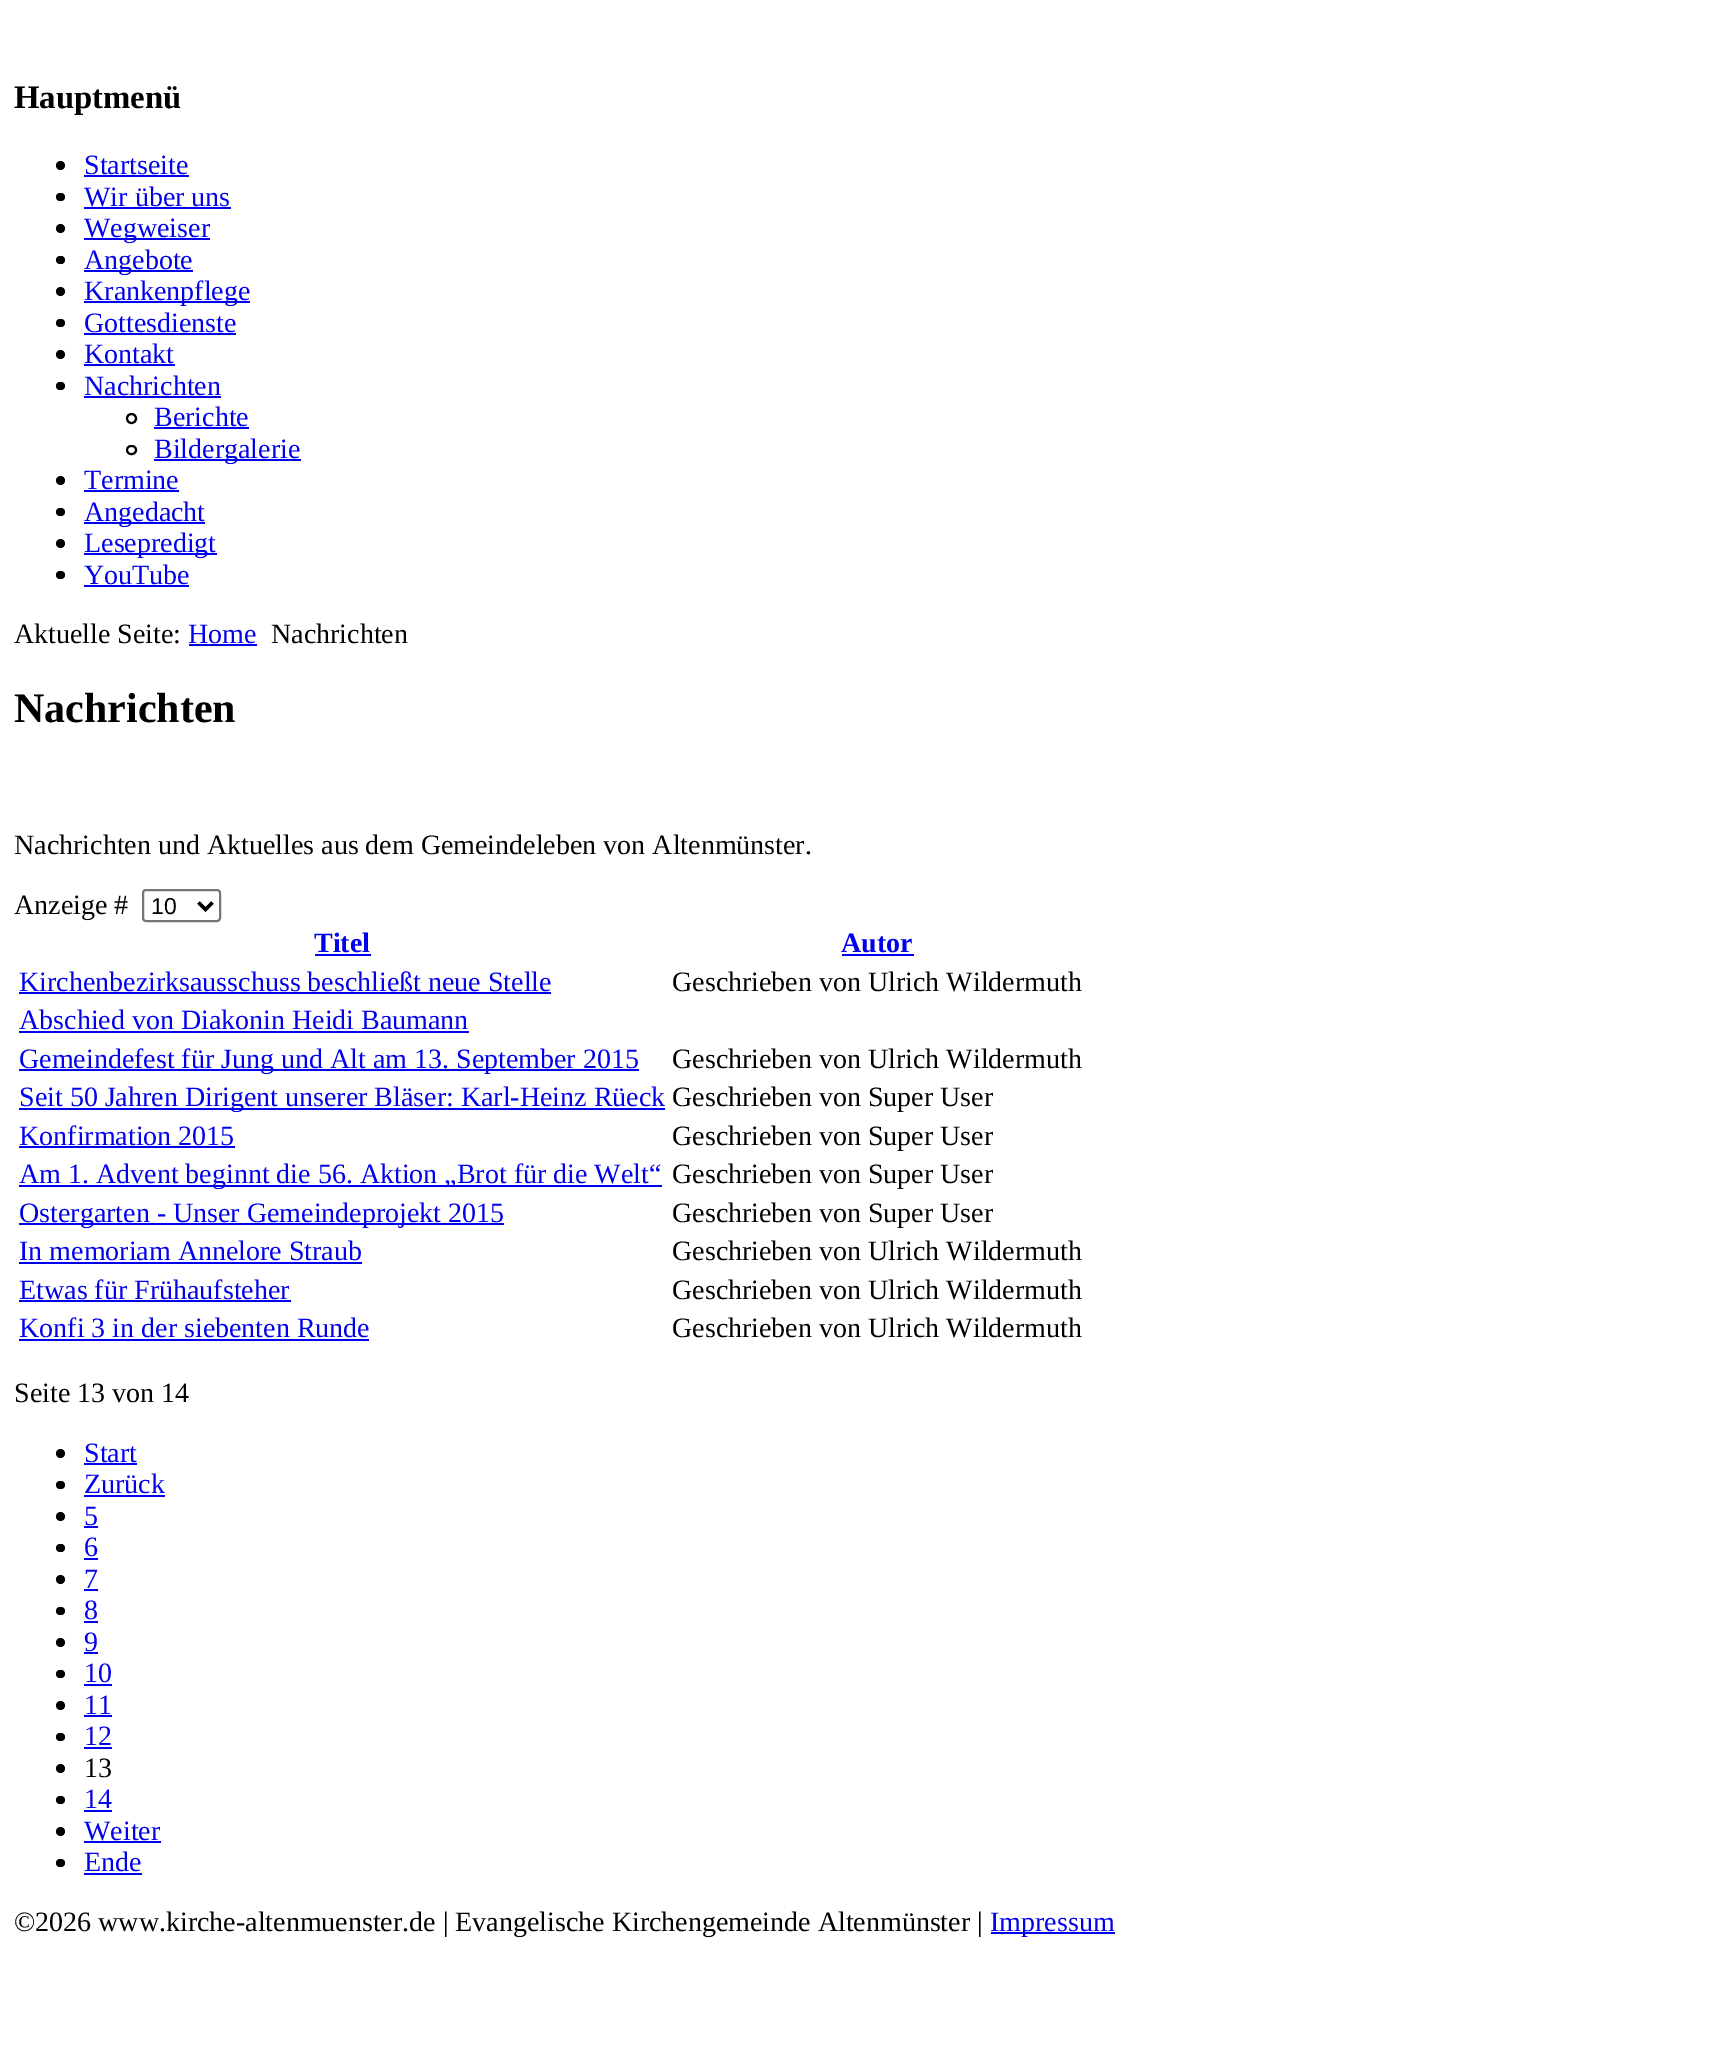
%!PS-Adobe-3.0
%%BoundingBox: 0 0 1731 2059
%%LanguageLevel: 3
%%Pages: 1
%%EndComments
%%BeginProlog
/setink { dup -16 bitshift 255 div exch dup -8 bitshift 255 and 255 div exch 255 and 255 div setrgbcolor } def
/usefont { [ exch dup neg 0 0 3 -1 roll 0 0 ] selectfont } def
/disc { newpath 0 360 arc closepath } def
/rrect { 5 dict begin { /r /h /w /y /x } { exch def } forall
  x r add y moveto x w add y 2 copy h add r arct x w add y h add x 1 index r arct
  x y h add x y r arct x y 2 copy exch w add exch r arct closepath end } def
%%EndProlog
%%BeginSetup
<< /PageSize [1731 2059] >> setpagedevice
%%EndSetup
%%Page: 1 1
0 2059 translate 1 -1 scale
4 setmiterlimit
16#FFFFFF setink
0 0 1731 2059 rectfill
/LiberationSerif-Bold 32.75 usefont
16#000000 setink
14 108 moveto (Hauptmenü) show
60.5 165.5 4.5 disc fill
/LiberationSerif-Regular 28 usefont
16#0000EE setink
84 174 moveto (Startseite) show
84 175 105 2 rectfill
16#000000 setink
56 193 9 8 4 rrect fill
16#0000EE setink
84 206 moveto (Wir über uns) show
84 207 147 2 rectfill
16#000000 setink
60.5 228.5 4.5 disc fill
16#0000EE setink
84 238 126 2 rectfill
84 237 moveto (Wegweiser) show
16#000000 setink
56 256 9 8 4 rrect fill
16#0000EE setink
84 270 109 2 rectfill
84 269 moveto (Angebote) show
16#000000 setink
60.5 291.5 4.5 disc fill
16#0000EE setink
84 301 166 2 rectfill
84 300 moveto (Krankenpflege) show
16#000000 setink
56 319 9 8 4 rrect fill
16#0000EE setink
84 332 moveto (Gottesdienste) show
84 333 152 2 rectfill
16#000000 setink
60.5 354.5 4.5 disc fill
16#0000EE setink
84 363 moveto (Kontakt) show
84 364 91 2 rectfill
16#000000 setink
56 382 9 8 4 rrect fill
16#0000EE setink
84 395 moveto (Nachrichten) show
84 396 137 2 rectfill
16#000000 setink
2 setlinewidth
131.5 418.5 4.5 disc stroke
16#0000EE setink
154 426 moveto (Berichte) show
154 427 95 2 rectfill
16#000000 setink
127 446 9 8 4 rrect stroke
16#0000EE setink
154 459 147 2 rectfill
154 458 moveto (Bildergalerie) show
16#000000 setink
60.5 480.5 4.5 disc fill
16#0000EE setink
84 489 moveto (Termine) show
84 490 95 2 rectfill
16#000000 setink
56 508 9 8 4 rrect fill
16#0000EE setink
84 522 121 2 rectfill
84 521 moveto (Angedacht) show
16#000000 setink
60.5 543.5 4.5 disc fill
16#0000EE setink
84 553 133 2 rectfill
84 552 moveto (Lesepredigt) show
16#000000 setink
56 571 9 8 4 rrect fill
16#0000EE setink
84 584 moveto (YouTube) show
84 585 105 2 rectfill
16#000000 setink
14 643 moveto (Aktuelle Seite:) show
16#0000EE setink
188 643 moveto (Home) show
189 644 68 2 rectfill
16#000000 setink
271 643 moveto (Nachrichten) show
/LiberationSerif-Bold 42 usefont
14 722 moveto (Nachrichten) show
/LiberationSerif-Regular 28 usefont
14 854 moveto (Nachrichten und Aktuelles aus dem Gemeindeleben von Altenmünster.) show
14 914 moveto (Anzeige #) show
16#767676 setink
143 890 77 31 3 rrect stroke
16#000000 setink
3.5 setlinewidth
198.5 902.5 moveto 205.5 909.5 lineto 212.5 902.5 lineto stroke
/LiberationSans-Regular 23 usefont
151 914 moveto (10) show
/LiberationSerif-Bold 28 usefont
16#0000EE setink
314 952 moveto (Titel) show
315 954 56 2 rectfill
841 952 moveto (Autor) show
842 954 72 2 rectfill
/LiberationSerif-Regular 28 usefont
19 991 moveto (Kirchenbezirksausschuss beschließt neue Stelle) show
19 992 532 2 rectfill
16#000000 setink
672 991 moveto (Geschrieben von Ulrich Wildermuth) show
16#0000EE setink
19 1029 moveto (Abschied von Diakonin Heidi Baumann) show
19 1031 450 2 rectfill
19 1069 620 2 rectfill
19 1068 moveto (Gemeindefest für Jung und Alt am 13. September 2015) show
16#000000 setink
672 1068 moveto (Geschrieben von Ulrich Wildermuth) show
16#0000EE setink
19 1108 646 2 rectfill
19 1106 moveto (Seit 50 Jahren Dirigent unserer Bläser: Karl-Heinz Rüeck) show
16#000000 setink
672 1106 moveto (Geschrieben von Super User) show
16#0000EE setink
19 1145 moveto (Konfirmation 2015) show
19 1146 216 2 rectfill
16#000000 setink
672 1145 moveto (Geschrieben von Super User) show
16#0000EE setink
19 1185 643 2 rectfill
19 1183 moveto (Am 1. Advent beginnt die 56. Aktion „Brot für die Welt“) show
16#000000 setink
672 1183 moveto (Geschrieben von Super User) show
16#0000EE setink
19 1223 485 2 rectfill
19 1222 moveto (Ostergarten - Unser Gemeindeprojekt 2015) show
16#000000 setink
672 1222 moveto (Geschrieben von Super User) show
16#0000EE setink
19 1260 moveto (In memoriam Annelore Straub) show
19 1262 343 2 rectfill
16#000000 setink
672 1260 moveto (Geschrieben von Ulrich Wildermuth) show
16#0000EE setink
19 1299 moveto (Etwas für Frühaufsteher) show
19 1300 272 2 rectfill
16#000000 setink
672 1299 moveto (Geschrieben von Ulrich Wildermuth) show
16#0000EE setink
19 1337 moveto (Konfi 3 in der siebenten Runde) show
19 1339 350 2 rectfill
16#000000 setink
672 1337 moveto (Geschrieben von Ulrich Wildermuth) show
14 1402 moveto (Seite 13 von 14) show
60.5 1453.5 4.5 disc fill
16#0000EE setink
84 1462 moveto (Start) show
84 1463 53 2 rectfill
16#000000 setink
56 1481 9 8 4 rrect fill
16#0000EE setink
84 1493 moveto (Zurück) show
84 1495 81 2 rectfill
16#000000 setink
60.5 1516.5 4.5 disc fill
16#0000EE setink
84 1525 moveto (5) show
84 1526 14 2 rectfill
16#000000 setink
56 1544 9 8 4 rrect fill
16#0000EE setink
84 1556 moveto (6) show
84 1558 14 2 rectfill
16#000000 setink
60.5 1579.5 4.5 disc fill
16#0000EE setink
84 1588 moveto (7) show
84 1589 14 2 rectfill
16#000000 setink
56 1607 9 8 4 rrect fill
16#0000EE setink
84 1619 moveto (8) show
84 1621 14 2 rectfill
16#000000 setink
60.5 1642.5 4.5 disc fill
16#0000EE setink
84 1651 moveto (9) show
84 1652 14 2 rectfill
16#000000 setink
56 1670 9 8 4 rrect fill
16#0000EE setink
84 1682 moveto (10) show
84 1684 28 2 rectfill
16#000000 setink
60.5 1705.5 4.5 disc fill
16#0000EE setink
84 1714 moveto (11) show
84 1715 28 2 rectfill
16#000000 setink
56 1733 9 8 4 rrect fill
16#0000EE setink
84 1745 moveto (12) show
84 1747 28 2 rectfill
16#000000 setink
60.5 1768.5 4.5 disc fill
84 1777 moveto (13) show
56 1796 9 8 4 rrect fill
16#0000EE setink
84 1808 moveto (14) show
84 1810 28 2 rectfill
16#000000 setink
60.5 1831.5 4.5 disc fill
16#0000EE setink
84 1840 moveto (Weiter) show
84 1841 77 2 rectfill
16#000000 setink
56 1859 9 8 4 rrect fill
16#0000EE setink
84 1871 moveto (Ende) show
84 1873 58 2 rectfill
16#000000 setink
14 1931 moveto (©2026 www.kirche-altenmuenster.de | Evangelische Kirchengemeinde Altenmünster |) show
16#0000EE setink
991 1932 124 2 rectfill
990 1931 moveto (Impressum) show
showpage
%%EOF
